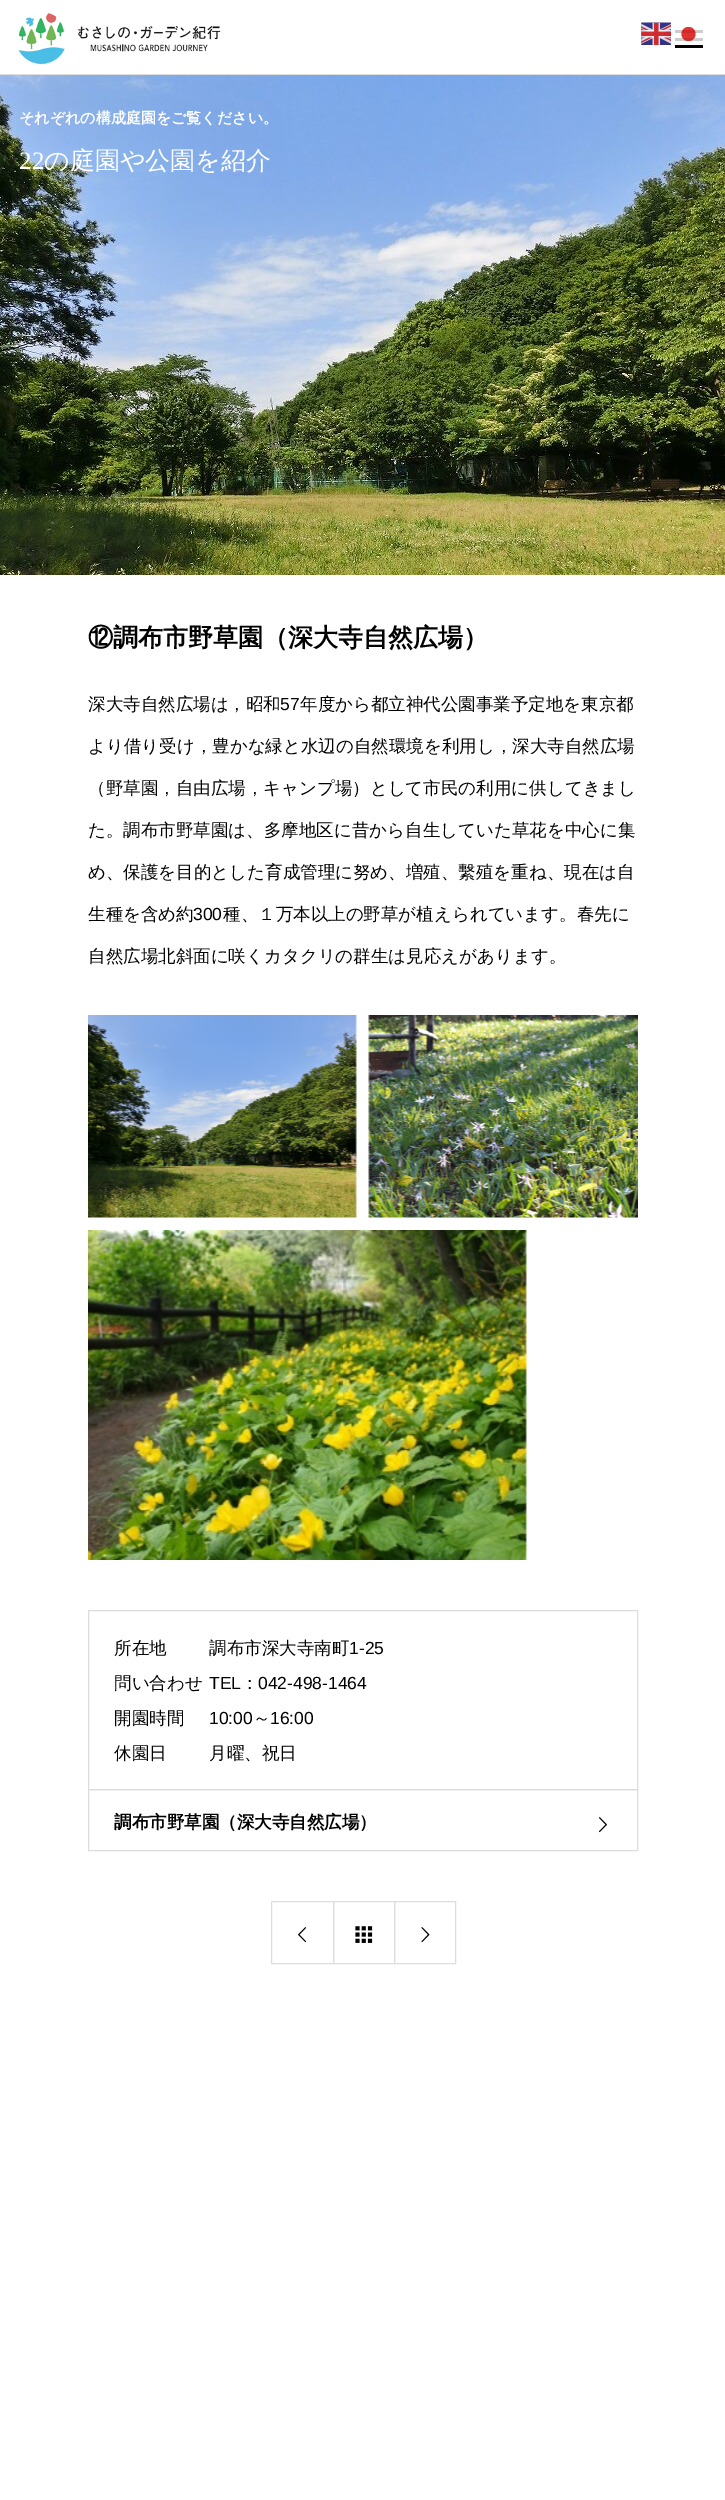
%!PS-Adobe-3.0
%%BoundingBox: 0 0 725 2500
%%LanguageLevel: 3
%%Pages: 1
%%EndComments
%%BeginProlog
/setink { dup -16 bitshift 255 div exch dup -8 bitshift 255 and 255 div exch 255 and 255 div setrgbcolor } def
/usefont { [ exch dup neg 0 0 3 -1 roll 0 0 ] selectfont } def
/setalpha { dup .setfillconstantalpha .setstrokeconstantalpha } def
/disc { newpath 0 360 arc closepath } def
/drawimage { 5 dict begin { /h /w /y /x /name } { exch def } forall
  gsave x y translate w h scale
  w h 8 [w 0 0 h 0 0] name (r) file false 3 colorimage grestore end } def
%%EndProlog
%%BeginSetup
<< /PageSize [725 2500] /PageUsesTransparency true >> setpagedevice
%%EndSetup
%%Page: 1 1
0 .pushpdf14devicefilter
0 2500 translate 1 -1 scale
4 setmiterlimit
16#FFFFFF setink
0 0 725 2500 rectfill
(img1.raw) 641 22 30 23 drawimage
16#CCCCCC setink
675 30 28 3 rectfill
675 38 28 3 rectfill
0.8 setalpha
16#D30000 setink
688.5 34 7 disc fill
1 setalpha
16#DDDDDD setink
0 74 725 1 rectfill
(img2.raw) 18 13 203 52 drawimage
16#000000 setink
675 45 28 3 rectfill
(img3.raw) 0 75 725 500 drawimage
/WenQuanYiZenHei-Bold 15 usefont
16#FFFFFF setink
19 123 moveto (それぞれの構成庭園をご覧ください。) show
/LiberationSerif-Regular 25 usefont
19 169 moveto (22) show
/WenQuanYiZenHei-Medium 25 usefont
44 169 moveto (の庭園や公園を紹介) show
/WenQuanYiZenHei-Bold 25 usefont
16#000000 setink
88 646 moveto (⑫調布市野草園（深大寺自然広場）) show
/WenQuanYiZenHei-Medium 17.5 usefont
88 710 moveto (深大寺自然広場は，昭和) show
/LiberationSans-Regular 17.5 usefont
280 710 moveto (57) show
/WenQuanYiZenHei-Medium 17.5 usefont
[
    [(年度から都立神代公園事業予定地を東京都) 300 710]
    [(より借り受け，豊かな緑と水辺の自然環境を利用し，深大寺自然広場) 88 752]
    [(（野草園，自由広場，キャンプ場）として市民の利用に供してきまし) 88 794]
    [(た。調布市野草園は、多摩地区に昔から自生していた草花を中心に集) 88 836]
    [(め、保護を目的とした育成管理に努め、増殖、繫殖を重ね、現在は自) 88 878]
    [(生種を含め約) 88 920]
] { aload pop moveto show } forall
/LiberationSans-Regular 17.5 usefont
193 920 moveto (300) show
/WenQuanYiZenHei-Medium 17.5 usefont
223 920 moveto (種、１万本以上の野草が植えられています。春先に) show
88 962 moveto (自然広場北斜面に咲くカタクリの群生は見応えがあります。) show
(img4.raw) 88 1015 269 203 drawimage
(img5.raw) 368 1015 270 203 drawimage
(img6.raw) 88 1230 439 330 drawimage
16#DDDDDD setink
88.5 1610.5 549 179 rectstroke
16#000000 setink
114 1654 moveto (所在地) show
209 1654 moveto (調布市深大寺南町) show
/LiberationSans-Regular 17.5 usefont
349 1654 moveto (1-25) show
/WenQuanYiZenHei-Medium 17.5 usefont
114 1689 moveto (問い合わせ) show
/LiberationSans-Regular 17.5 usefont
209 1689 moveto (TEL) show
/WenQuanYiZenHei-Medium 17.5 usefont
241 1689 moveto (：) show
/LiberationSans-Regular 17.5 usefont
258 1689 moveto (042-498-1464) show
/WenQuanYiZenHei-Medium 17.5 usefont
114 1724 moveto (開園時間) show
/LiberationSans-Regular 17.5 usefont
209 1724 moveto (10:00) show
/WenQuanYiZenHei-Medium 17.5 usefont
253 1724 moveto (～) show
/LiberationSans-Regular 17.5 usefont
270 1724 moveto (16:00) show
/WenQuanYiZenHei-Medium 17.5 usefont
114 1759 moveto (休園日) show
209 1759 moveto (月曜、祝日) show
16#DDDDDD setink
88.5 1789.5 549 61 rectstroke
/WenQuanYiZenHei-Bold 17.5 usefont
16#000000 setink
114 1828 moveto (調布市野草園（深大寺自然広場）) show
(img7.raw) 599 1817 8 16 drawimage
16#DDDDDD setink
333.5 1901.5 61 62 rectstroke
271.5 1901.5 62 62 rectstroke
(img8.raw) 298 1927 8 16 drawimage
(img9.raw) 355 1926 18 17 drawimage
394.5 1901.5 61 62 rectstroke
(img10.raw) 421 1927 9 16 drawimage
.poppdf14devicefilter showpage
%%EOF
